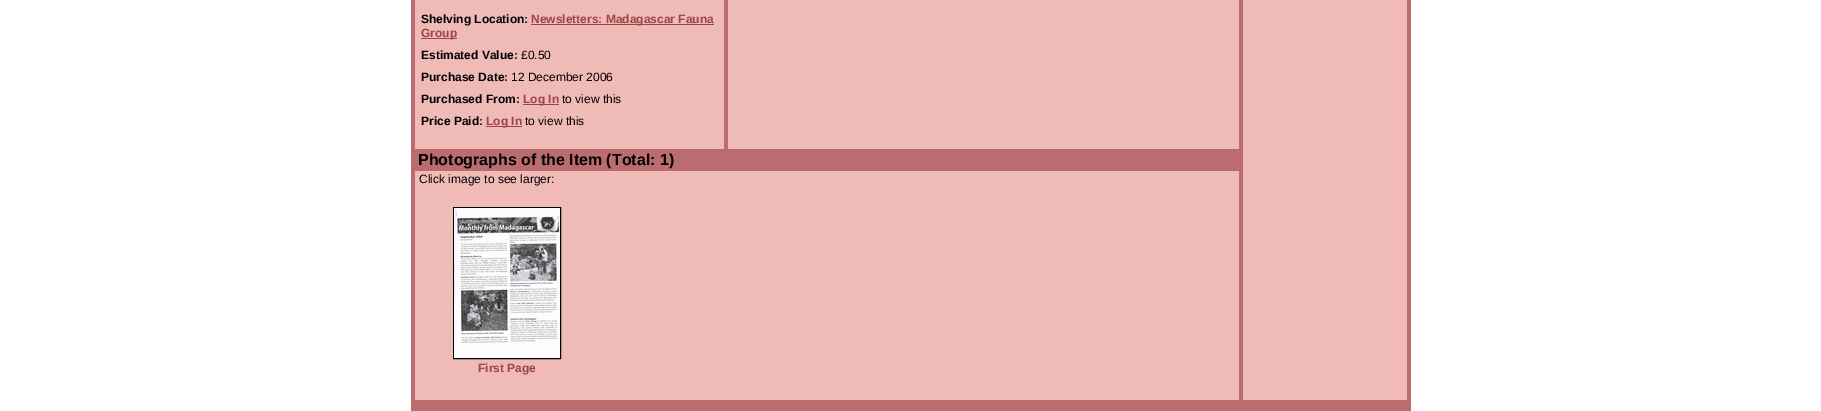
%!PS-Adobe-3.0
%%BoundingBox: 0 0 1821 411
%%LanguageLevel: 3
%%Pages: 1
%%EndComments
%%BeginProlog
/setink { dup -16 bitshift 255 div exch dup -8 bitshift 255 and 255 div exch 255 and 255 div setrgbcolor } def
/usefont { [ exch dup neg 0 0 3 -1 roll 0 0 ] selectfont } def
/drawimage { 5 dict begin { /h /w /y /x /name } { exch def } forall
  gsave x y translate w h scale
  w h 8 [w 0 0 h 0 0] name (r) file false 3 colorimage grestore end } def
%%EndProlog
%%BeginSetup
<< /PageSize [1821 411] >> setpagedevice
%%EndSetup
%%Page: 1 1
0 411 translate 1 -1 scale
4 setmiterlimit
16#FFFFFF setink
0 0 1821 411 rectfill
[
    [415 0 992 400 16#F0BAB6]
    [1409 0 2 411 16#BB6C6E]
    [411 0 2 411 16#BB6C6E]
    [724 0 4 149 16#BB6C6E]
    [413 0 2 149 16#BB6C6E]
] { aload pop setink rectfill } forall
/LiberationSans-Bold 12 usefont
16#000000 setink
421 23 moveto (Shelving Location:) show
16#9B4547 setink
531 24 183 1 rectfill
531 23 moveto (Newsletters: Madagascar Fauna) show
421 38 36 1 rectfill
421 37 moveto (Group) show
16#000000 setink
421 59 moveto (Estimated Value:) show
/LiberationSans-Regular 12 usefont
521 59 moveto (£0.50) show
/LiberationSans-Bold 12 usefont
421 81 moveto (Purchase Date:) show
/LiberationSans-Regular 12 usefont
511 81 moveto (12 December 2006) show
/LiberationSans-Bold 12 usefont
421 103 moveto (Purchased From:) show
16#9B4547 setink
523 104 36 1 rectfill
523 103 moveto (Log In) show
/LiberationSans-Regular 12 usefont
16#000000 setink
562 103 moveto (to view this) show
/LiberationSans-Bold 12 usefont
421 125 moveto (Price Paid:) show
16#9B4547 setink
486 126 36 1 rectfill
486 125 moveto (Log In) show
/LiberationSans-Regular 12 usefont
16#000000 setink
525 125 moveto (to view this) show
[
    [1239 0 2 149 16#BB6C6E]
    [1407 0 2 400 16#BB6C6E]
    [1241 0 2 400 16#BB6C6E]
    [413 149 828 22 16#BB6C6E]
] { aload pop setink rectfill } forall
/LiberationSans-Bold 16 usefont
16#000000 setink
418 165 moveto (Photographs of the Item \(Total: 1\)) show
16#BB6C6E setink
1239 171 2 229 rectfill
413 171 2 229 rectfill
/LiberationSans-Regular 12 usefont
16#000000 setink
419 183 moveto (Click image to see larger:) show
453.5 207.5 107 151 rectstroke
(img1.raw) 454 208 106 150 drawimage
/LiberationSans-Bold 12 usefont
16#9B4547 setink
478 372 moveto (First Page) show
16#BB6C6E setink
413 400 996 11 rectfill
showpage
%%EOF
